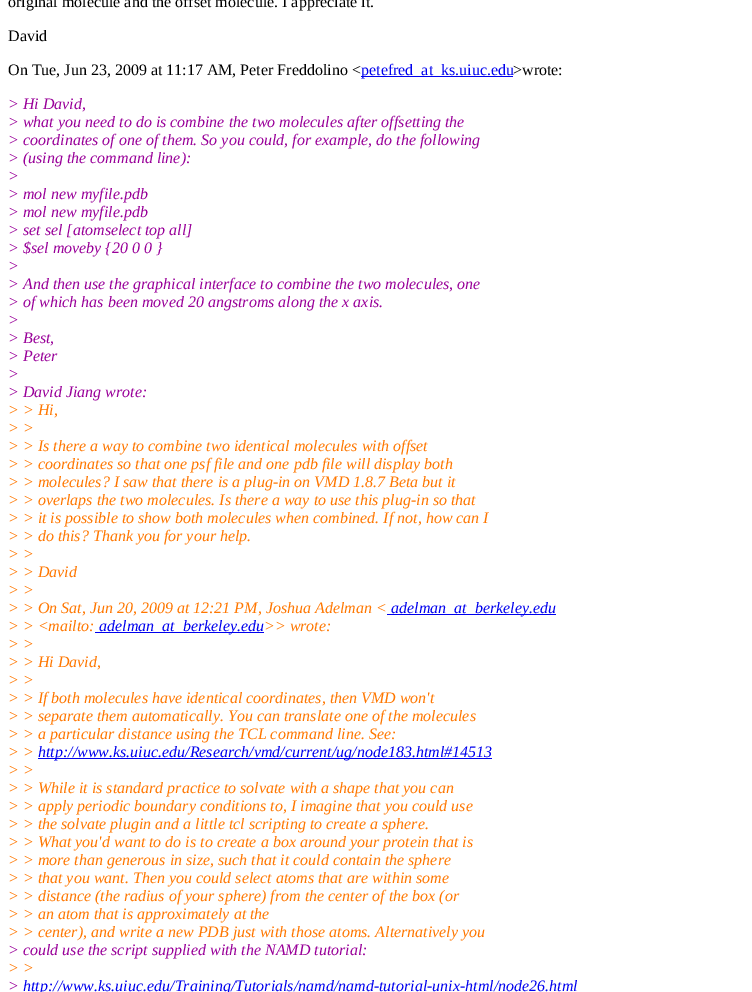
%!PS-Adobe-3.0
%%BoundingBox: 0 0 752 992
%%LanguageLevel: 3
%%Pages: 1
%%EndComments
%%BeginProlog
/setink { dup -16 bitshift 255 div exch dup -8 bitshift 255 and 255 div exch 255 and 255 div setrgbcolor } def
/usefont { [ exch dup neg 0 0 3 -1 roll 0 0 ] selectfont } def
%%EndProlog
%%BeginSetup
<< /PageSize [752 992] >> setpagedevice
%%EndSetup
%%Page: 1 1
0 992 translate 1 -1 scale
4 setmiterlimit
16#FFFFFF setink
0 0 752 992 rectfill
/LiberationSerif-Regular 16 usefont
16#000000 setink
[
    [(original molecule and the offset molecule. I appreciate it.) 8 7]
    [(David) 8 41]
    [(On Tue, Jun 23, 2009 at 11:17 AM, Peter Freddolino <) 8 75]
] { aload pop moveto show } forall
16#0000EE setink
361 76 152 1 rectfill
361 75 moveto (petefred_at_ks.uiuc.edu) show
16#000000 setink
513 75 moveto (>wrote:) show
/LiberationSerif-Italic 16 usefont
16#990099 setink
[
    [(> Hi David,) 8 109]
    [(> what you need to do is combine the two molecules after offsetting the) 8 127]
    [(> coordinates of one of them. So you could, for example, do the following) 8 145]
    [(> \(using the command line\):) 8 163]
    [(>) 8 181]
    [(> mol new myfile.pdb) 8 199]
    [(> mol new myfile.pdb) 8 217]
    [(> set sel [atomselect top all]) 8 235]
    [(> $sel moveby {20 0 0 }) 8 253]
    [(>) 8 271]
    [(> And then use the graphical interface to combine the two molecules, one) 8 289]
    [(> of which has been moved 20 angstroms along the x axis.) 8 307]
    [(>) 8 325]
    [(> Best,) 8 343]
    [(> Peter) 8 361]
    [(>) 8 379]
    [(> David Jiang wrote:) 8 397]
] { aload pop moveto show } forall
16#FF7700 setink
[
    [(> > Hi,) 8 415]
    [(> >) 8 433]
    [(> > Is there a way to combine two identical molecules with offset) 8 451]
    [(> > coordinates so that one psf file and one pdb file will display both) 8 469]
    [(> > molecules? I saw that there is a plug-in on VMD 1.8.7 Beta but it) 8 487]
    [(> > overlaps the two molecules. Is there a way to use this plug-in so that) 8 505]
    [(> > it is possible to show both molecules when combined. If not, how can I) 8 523]
    [(> > do this? Thank you for your help.) 8 541]
    [(> >) 8 559]
    [(> > David) 8 577]
    [(> >) 8 595]
    [(> > On Sat, Jun 20, 2009 at 12:21 PM, Joshua Adelman <) 8 613]
] { aload pop moveto show } forall
16#0000EE setink
387 614 169 1 rectfill
391 613 moveto (adelman_at_berkeley.edu) show
16#FF7700 setink
8 631 moveto (> > <mailto:) show
16#0000EE setink
95 632 169 1 rectfill
99 631 moveto (adelman_at_berkeley.edu) show
16#FF7700 setink
[
    [(>> wrote:) 264 631]
    [(> >) 8 649]
    [(> > Hi David,) 8 667]
    [(> >) 8 685]
    [(> > If both molecules have identical coordinates, then VMD won't) 8 703]
    [(> > separate them automatically. You can translate one of the molecules) 8 721]
    [(> > a particular distance using the TCL command line. See:) 8 739]
    [(> >) 8 757]
] { aload pop moveto show } forall
16#0000EE setink
38 758 454 1 rectfill
38 757 moveto (http://www.ks.uiuc.edu/Research/vmd/current/ug/node183.html#14513) show
16#FF7700 setink
[
    [(> >) 8 775]
    [(> > While it is standard practice to solvate with a shape that you can) 8 793]
    [(> > apply periodic boundary conditions to, I imagine that you could use) 8 811]
    [(> > the solvate plugin and a little tcl scripting to create a sphere.) 8 829]
    [(> > What you'd want to do is to create a box around your protein that is) 8 847]
    [(> > more than generous in size, such that it could contain the sphere) 8 865]
    [(> > that you want. Then you could select atoms that are within some) 8 883]
    [(> > distance \(the radius of your sphere\) from the center of the box \(or) 8 901]
    [(> > an atom that is approximately at the) 8 919]
    [(> > center\), and write a new PDB just with those atoms. Alternatively you) 8 937]
] { aload pop moveto show } forall
16#990099 setink
8 955 moveto (> could use the script supplied with the NAMD tutorial:) show
16#FF7700 setink
8 973 moveto (> >) show
16#990099 setink
8 991 moveto (>) show
16#0000EE setink
23 991 moveto (http://www.ks.uiuc.edu/Training/Tutorials/namd/namd-tutorial-unix-html/node26.html) show
showpage
%%EOF
